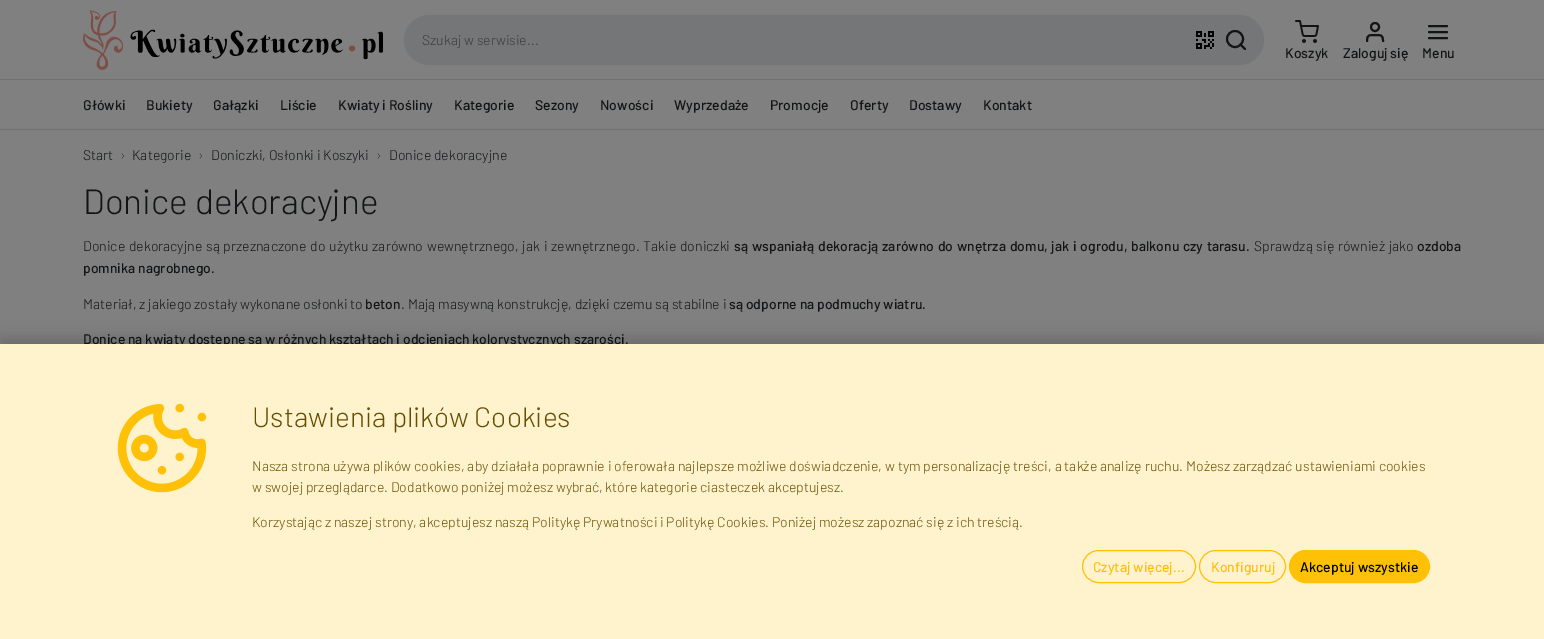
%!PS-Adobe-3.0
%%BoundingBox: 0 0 1544 639
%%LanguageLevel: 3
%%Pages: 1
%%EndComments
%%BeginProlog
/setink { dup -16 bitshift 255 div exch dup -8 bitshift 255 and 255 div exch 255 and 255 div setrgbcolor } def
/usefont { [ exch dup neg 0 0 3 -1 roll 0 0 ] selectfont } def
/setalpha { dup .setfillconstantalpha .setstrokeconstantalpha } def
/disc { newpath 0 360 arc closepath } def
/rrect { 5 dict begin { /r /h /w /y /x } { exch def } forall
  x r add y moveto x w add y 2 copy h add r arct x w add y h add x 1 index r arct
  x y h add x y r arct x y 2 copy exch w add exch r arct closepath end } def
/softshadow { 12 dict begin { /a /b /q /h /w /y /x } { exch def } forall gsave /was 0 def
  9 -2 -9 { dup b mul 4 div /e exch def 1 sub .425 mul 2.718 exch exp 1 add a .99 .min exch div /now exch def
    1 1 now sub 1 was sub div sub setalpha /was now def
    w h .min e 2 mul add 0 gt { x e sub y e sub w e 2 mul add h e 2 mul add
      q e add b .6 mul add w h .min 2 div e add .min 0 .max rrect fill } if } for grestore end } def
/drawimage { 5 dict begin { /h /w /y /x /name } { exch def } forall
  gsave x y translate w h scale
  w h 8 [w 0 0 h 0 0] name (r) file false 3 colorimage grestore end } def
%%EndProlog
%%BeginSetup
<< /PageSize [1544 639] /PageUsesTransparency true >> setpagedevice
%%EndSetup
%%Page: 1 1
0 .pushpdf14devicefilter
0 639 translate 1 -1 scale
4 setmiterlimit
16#808080 setink
0 0 1544 639 rectfill
16#707070 setink
0 79 1544 1 rectfill
(img1.raw) 83 10 300 60 drawimage
16#757678 setink
404 15 860 50 25 rrect fill
/Barlow-Light 14 usefont
16#3B3B3B setink
422 45 moveto (Szukaj w serwisie...) show
(img2.raw) 1196 31 18 18 drawimage
16#111315 setink
2 setlinewidth
1235 39 8 disc stroke
1 setlinecap
1 setlinejoin
1245 49 moveto 1240.5 44.5 lineto stroke
(img3.raw) 1295 20 24 23 drawimage
/Barlow-Medium 14 usefont
1285 58 moveto (Koszyk) show
1383 41 moveto 1383 34.5 1380.5 35 1375 35 curveto 1369.5 35 1367 34.5 1367 41 curveto stroke
0 setlinecap
0 setlinejoin
1375 27 4 disc stroke
1343 58 moveto (Zaloguj się) show
1 setlinecap
1 setlinejoin
1429 32 moveto 1447 32 lineto 1429 26 moveto 1447 26 lineto 1429 38 moveto 1447 38 lineto stroke
1422 58 moveto (Menu) show
16#6F7173 setink
0 129 1544 1 rectfill
16#111315 setink
[
    [(Główki) 83 110]
    [(Bukiety) 146 110]
    [(Gałązki) 213 110]
    [(Liście) 280 110]
    [(Kwiaty i Rośliny) 338 110]
    [(Kategorie) 454 110]
    [(Sezony) 535 110]
    [(Nowości) 600 110]
    [(Wyprzedaże) 674 110]
    [(Promocje) 770 110]
    [(Oferty) 850 110]
    [(Dostawy) 909 110]
    [(Kontakt) 983 110]
] { aload pop moveto show } forall
/Barlow-Light 14 usefont
83 160 moveto (Start) show
16#2D2E30 setink
120 160 moveto (›) show
16#111315 setink
132 160 moveto (Kategorie) show
16#2D2E30 setink
198 160 moveto (›) show
16#111315 setink
211 160 moveto (Doniczki, Osłonki i Koszyki) show
16#2D2E30 setink
376 160 moveto (›) show
16#111315 setink
389 160 moveto (Donice dekoracyjne) show
/Barlow-Light 35 usefont
83 214 moveto (Donice dekoracyjne) show
/Barlow-Light 14 usefont
83 251 moveto 1 0 32 (Donice dekoracyjne są przeznaczone do użytku zarówno wewnętrznego, jak i zewnętrznego. Takie doniczki) widthshow
/Barlow-Medium 13.9 usefont
734 251 moveto 1 0 32 (są wspaniałą dekoracją zarówno do wnętrza domu, jak i ogrodu, balkonu czy tarasu.) widthshow
/Barlow-Light 14 usefont
1254 251 moveto 1 0 32 (Sprawdzą się również jako) widthshow
/Barlow-Medium 13.9 usefont
1417 251 moveto (ozdoba) show
83 273 moveto (pomnika nagrobnego.) show
/Barlow-Light 14 usefont
83 309 moveto (Materiał, z jakiego zostały wykonane osłonki to) show
/Barlow-Medium 13.9 usefont
365 309 moveto (beton) show
/Barlow-Light 14 usefont
401 309 moveto (. Mają masywną konstrukcję, dzięki czemu są stabilne i) show
/Barlow-Medium 13.9 usefont
729 309 moveto (są odporne na podmuchy wiatru.) show
83 344 moveto (Donice na kwiaty dostępne są w różnych kształtach i odcieniach kolorystycznych szarości.) show
16#000000 setink
0 337 1544 295 0 7 0.15 softshadow
16#FFF3CD setink
0 344 1544 295 rectfill
(img4.raw) 117 403 90 90 drawimage
/Barlow-Light 28 usefont
16#664D03 setink
252 427 moveto (Ustawienia plików Cookies) show
/Barlow-Light 14 usefont
[
    [(Nasza strona używa plików cookies, aby działała poprawnie i oferowała najlepsze możliwe doświadczenie, w tym personalizację treści, a także analizę ruchu. Możesz zarządzać ustawieniami cookies) 252 471]
    [(w swojej przeglądarce. Dodatkowo poniżej możesz wybrać, które kategorie ciasteczek akceptujesz.) 252 492]
    [(Korzystając z naszej strony, akceptujesz naszą Politykę Prywatności i Politykę Cookies. Poniżej możesz zapoznać się z ich treścią.) 252 527]
] { aload pop moveto show } forall
16#FFC107 setink
1 setlinewidth
0 setlinecap
0 setlinejoin
1082.5 550.5 113 32 16 rrect stroke
/Barlow-Medium 14 usefont
1093 572 moveto (Czytaj więcej...) show
1199.5 550.5 86 32 16 rrect stroke
1211 572 moveto (Konfiguruj) show
1289.5 550.5 140 32 16 rrect gsave fill grestore
stroke
16#000000 setink
1300 572 moveto (Akceptuj wszystkie) show
.poppdf14devicefilter showpage
%%EOF
